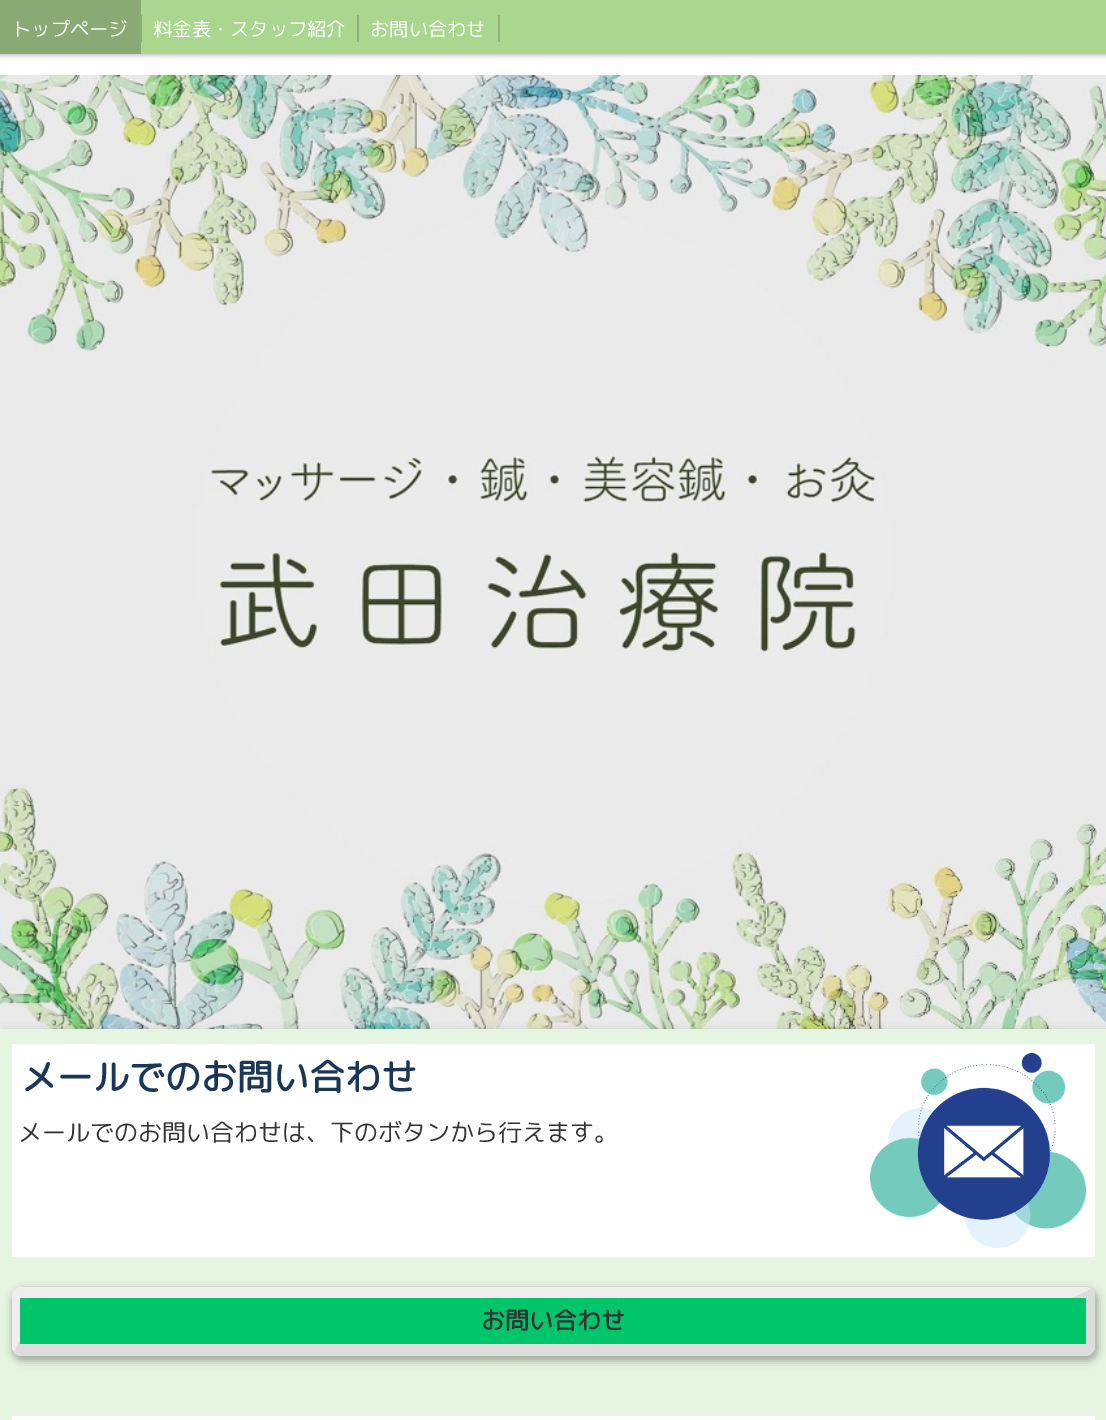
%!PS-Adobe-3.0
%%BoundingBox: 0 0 1106 1420
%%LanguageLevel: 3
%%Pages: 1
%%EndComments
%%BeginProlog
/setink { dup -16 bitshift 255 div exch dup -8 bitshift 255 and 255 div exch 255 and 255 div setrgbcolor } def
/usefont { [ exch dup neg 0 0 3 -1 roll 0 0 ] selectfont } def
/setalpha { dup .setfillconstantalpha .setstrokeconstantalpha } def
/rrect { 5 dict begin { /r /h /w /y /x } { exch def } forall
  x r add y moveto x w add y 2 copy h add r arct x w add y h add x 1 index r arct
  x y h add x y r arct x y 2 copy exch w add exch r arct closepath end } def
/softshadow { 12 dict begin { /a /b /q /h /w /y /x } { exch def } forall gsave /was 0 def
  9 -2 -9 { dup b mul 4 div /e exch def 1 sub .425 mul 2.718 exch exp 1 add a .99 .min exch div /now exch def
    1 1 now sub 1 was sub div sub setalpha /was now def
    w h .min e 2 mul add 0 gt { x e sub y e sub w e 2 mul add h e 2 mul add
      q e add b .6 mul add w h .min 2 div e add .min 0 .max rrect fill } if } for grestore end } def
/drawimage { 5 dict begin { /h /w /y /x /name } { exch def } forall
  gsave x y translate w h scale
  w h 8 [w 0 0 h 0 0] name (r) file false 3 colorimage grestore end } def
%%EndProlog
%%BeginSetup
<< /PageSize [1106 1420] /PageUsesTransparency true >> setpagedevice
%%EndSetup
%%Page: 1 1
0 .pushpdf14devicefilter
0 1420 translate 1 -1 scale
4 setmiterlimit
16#FFFFFF setink
0 0 1106 1420 rectfill
16#010101 setink
0 0 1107 54 0 3 0.4 softshadow
[
    [141 0 965 54 16#ABD690]
    [0 0 141 54 16#89AA74]
    [140 15 2 27 16#91AF7D]
] { aload pop setink rectfill } forall
/RoundedMplus1c-Regular 19.25 usefont
16#FFFFFF setink
12 36 moveto (トップページ) show
16#91AF7D setink
357 15 2 27 rectfill
16#FFFFFF setink
153 36 moveto (料金表・スタッフ紹介) show
16#91AF7D setink
498 15 2 27 rectfill
16#FFFFFF setink
370 36 moveto (お問い合わせ) show
(img1.raw) 0 75 1106 954 drawimage
16#000000 setink
2 1031 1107 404 3 4 0.2 softshadow
16#E6F5E1 setink
0 1029 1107 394 3 rrect fill
16#FFFFFF setink
12 1044 1083 213 rectfill
/RoundedMplus1c-Bold 36 usefont
16#1B3757 setink
21 1090 moveto (メールでのお問い合わせ) show
/RoundedMplus1c-Regular 24 usefont
16#333333 setink
18 1141 moveto (メールでのお問い合わせは、下のボタンから行えます。) show
(img2.raw) 870 1053 216 195 drawimage
16#000000 setink
12 1289 1086 72 11 4 0.3 softshadow
16#EEEEEE setink
21 1287 moveto 1086 1287 lineto 1088 1287 1090 1288 1091 1289 curveto 1026 1322 lineto 46 1322 lineto 15 1290 lineto 16 1288 18 1287 21 1287 curveto closepath fill
16#DDDDDD setink
1091 1289 moveto 1026 1322 lineto 1060 1322 lineto 1092 1353 lineto 1094 1352 1095 1350 1095 1347 curveto 1095 1296 lineto 1095 1293 1094 1290 1091 1289 curveto closepath fill
1092 1353 moveto 1060 1322 lineto 29 1322 lineto 14 1352 lineto 15 1355 18 1356 21 1356 curveto 1086 1356 lineto 1088 1356 1091 1355 1092 1353 curveto closepath fill
16#EEEEEE setink
14 1352 moveto 29 1322 lineto 46 1322 lineto 15 1290 lineto 13 1291 12 1294 12 1296 curveto 12 1347 lineto 12 1349 13 1351 14 1352 curveto closepath fill
16#00C56B setink
20 1298 1066 46 rectfill
/RoundedMplus1c-Bold 24 usefont
16#333333 setink
481 1329 moveto (お問い合わせ) show
16#FFFFFF setink
12 1416 1083 4 rectfill
.poppdf14devicefilter showpage
%%EOF
